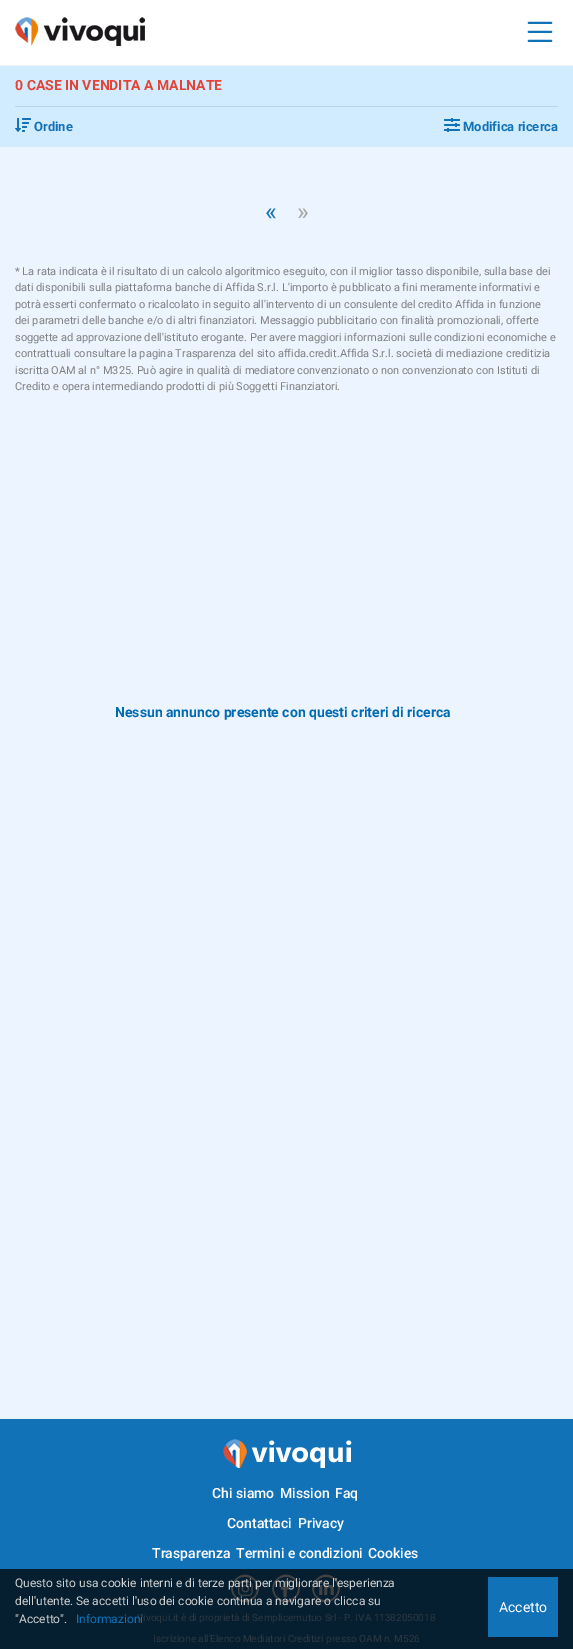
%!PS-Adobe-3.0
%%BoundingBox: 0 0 573 1649
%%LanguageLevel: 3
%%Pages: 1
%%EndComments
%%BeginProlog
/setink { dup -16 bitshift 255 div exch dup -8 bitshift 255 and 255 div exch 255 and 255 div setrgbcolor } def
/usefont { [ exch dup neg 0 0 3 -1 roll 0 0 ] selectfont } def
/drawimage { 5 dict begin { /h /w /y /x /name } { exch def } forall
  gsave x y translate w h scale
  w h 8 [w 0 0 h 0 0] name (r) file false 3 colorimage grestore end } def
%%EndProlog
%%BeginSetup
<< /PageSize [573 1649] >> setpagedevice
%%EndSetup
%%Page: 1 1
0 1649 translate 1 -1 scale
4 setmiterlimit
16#ECF4FF setink
0 0 573 1649 rectfill
16#FFFFFF setink
0 0 573 65 rectfill
16#F1F1F1 setink
0 65 573 1 rectfill
(img1.raw) 15 17 130 29 drawimage
(img2.raw) 527 21 26 21 drawimage
16#D1ECFF setink
0 66 573 81 rectfill
/Roboto-Bold 14 usefont
16#E44436 setink
15 90 moveto (0 CASE IN VENDITA A MALNATE) show
16#BCD4E6 setink
15 106 543 1 rectfill
(img3.raw) 15 118 16 14 drawimage
/Roboto-Bold 13 usefont
16#1272B8 setink
34 131 moveto (Ordine) show
(img4.raw) 444 118 16 14 drawimage
463 131 moveto (Modifica ricerca) show
/Roboto-Regular 25 usefont
265 220 moveto («) show
16#A5A5A5 setink
297 220 moveto (») show
/Roboto-Regular 11 usefont
16#808080 setink
[
    [(* La rata indicata è il risultato di un calcolo algoritmico eseguito, con il miglior tasso disponibile, sulla base dei) 15 275]
    [(dati disponibili sulla piattaforma banche di Affida S.r.l. L'importo è pubblicato a fini meramente informativi e) 15 291]
    [(potrà esserti confermato o ricalcolato in seguito all'intervento di un consulente del credito Affida in funzione) 15 308]
    [(dei parametri delle banche e/o di altri finanziatori. Messaggio pubblicitario con finalità promozionali, offerte) 15 324]
    [(soggette ad approvazione dell'istituto erogante. Per avere maggiori informazioni sulle condizioni economiche e) 15 341]
    [(contrattuali consultare la pagina Trasparenza del sito affida.credit.Affida S.r.l. società di mediazione creditizia) 15 357]
    [(iscritta OAM al n° M325. Può agire in qualità di mediatore convenzionato o non convenzionato con Istituti di) 15 374]
    [(Credito e opera intermediando prodotti di più Soggetti Finanziatori.) 15 390]
] { aload pop moveto show } forall
/Roboto-Bold 14 usefont
16#006AB3 setink
115 717 moveto (Nessun annunco presente con questi criteri di ricerca) show
16#1272B8 setink
0 1419 573 150 rectfill
16#051E30 setink
0 1569 573 80 rectfill
(img5.raw) 223 1439 129 29 drawimage
/Roboto-Medium 14 usefont
16#FFFFFF setink
[
    [(Chi siamo) 212 1498]
    [(Mission) 280 1498]
    [(Faq) 335 1498]
    [(Contattaci) 227 1528]
    [(Privacy) 298 1528]
    [(Trasparenza) 152 1558]
    [(Termini e condizioni) 236 1558]
    [(Cookies) 368 1558]
] { aload pop moveto show } forall
16#424242 setink
235.5 1579 moveto 248 1566 267.5 1585.5 254.5 1598 curveto 242 1611 222.5 1591.5 235.5 1579 curveto closepath 257 1588.5 moveto 257 1573 233 1573 233 1588.5 curveto 233 1604 257 1604 257 1588.5 curveto closepath fill
(img6.raw) 238 1581 15 16 drawimage
276.5 1579 moveto 289 1566 308.5 1585.5 295.5 1598 curveto 283 1611 263.5 1591.5 276.5 1579 curveto closepath 298 1588.5 moveto 298 1573 274 1573 274 1588.5 curveto 274 1604 298 1604 298 1588.5 curveto closepath fill
(img7.raw) 280 1580 10 18 drawimage
316.5 1579 moveto 329 1566 348.5 1585.5 335.5 1598 curveto 323 1611 303.5 1591.5 316.5 1579 curveto closepath 338 1588.5 moveto 338 1573 314 1573 314 1588.5 curveto 314 1604 338 1604 338 1588.5 curveto closepath fill
(img8.raw) 319 1580 15 15 drawimage
/Roboto-Regular 10 usefont
16#2D3942 setink
137 1621 moveto (Vivoqui.it è di proprietà di Semplicemutuo Srl - P. IVA 11382050018) show
153 1642 moveto (Iscrizione all'Elenco Mediatori Creditizi presso OAM n. M526) show
/Roboto-Regular 12 usefont
16#D0D0D0 setink
[
    [(Questo sito usa cookie interni e di terze parti per migliorare l'esperienza) 15 1587]
    [(dell'utente. Se accetti l'uso dei cookie continua a navigare o clicca su) 15 1605]
    [("Accetto".) 15 1623]
] { aload pop moveto show } forall
16#1272B8 setink
76 1623 moveto (Informazioni) show
488 1577 70 60 rectfill
/Roboto-Regular 14 usefont
16#FFFFFF setink
499 1612 moveto (Accetto) show
showpage
%%EOF
